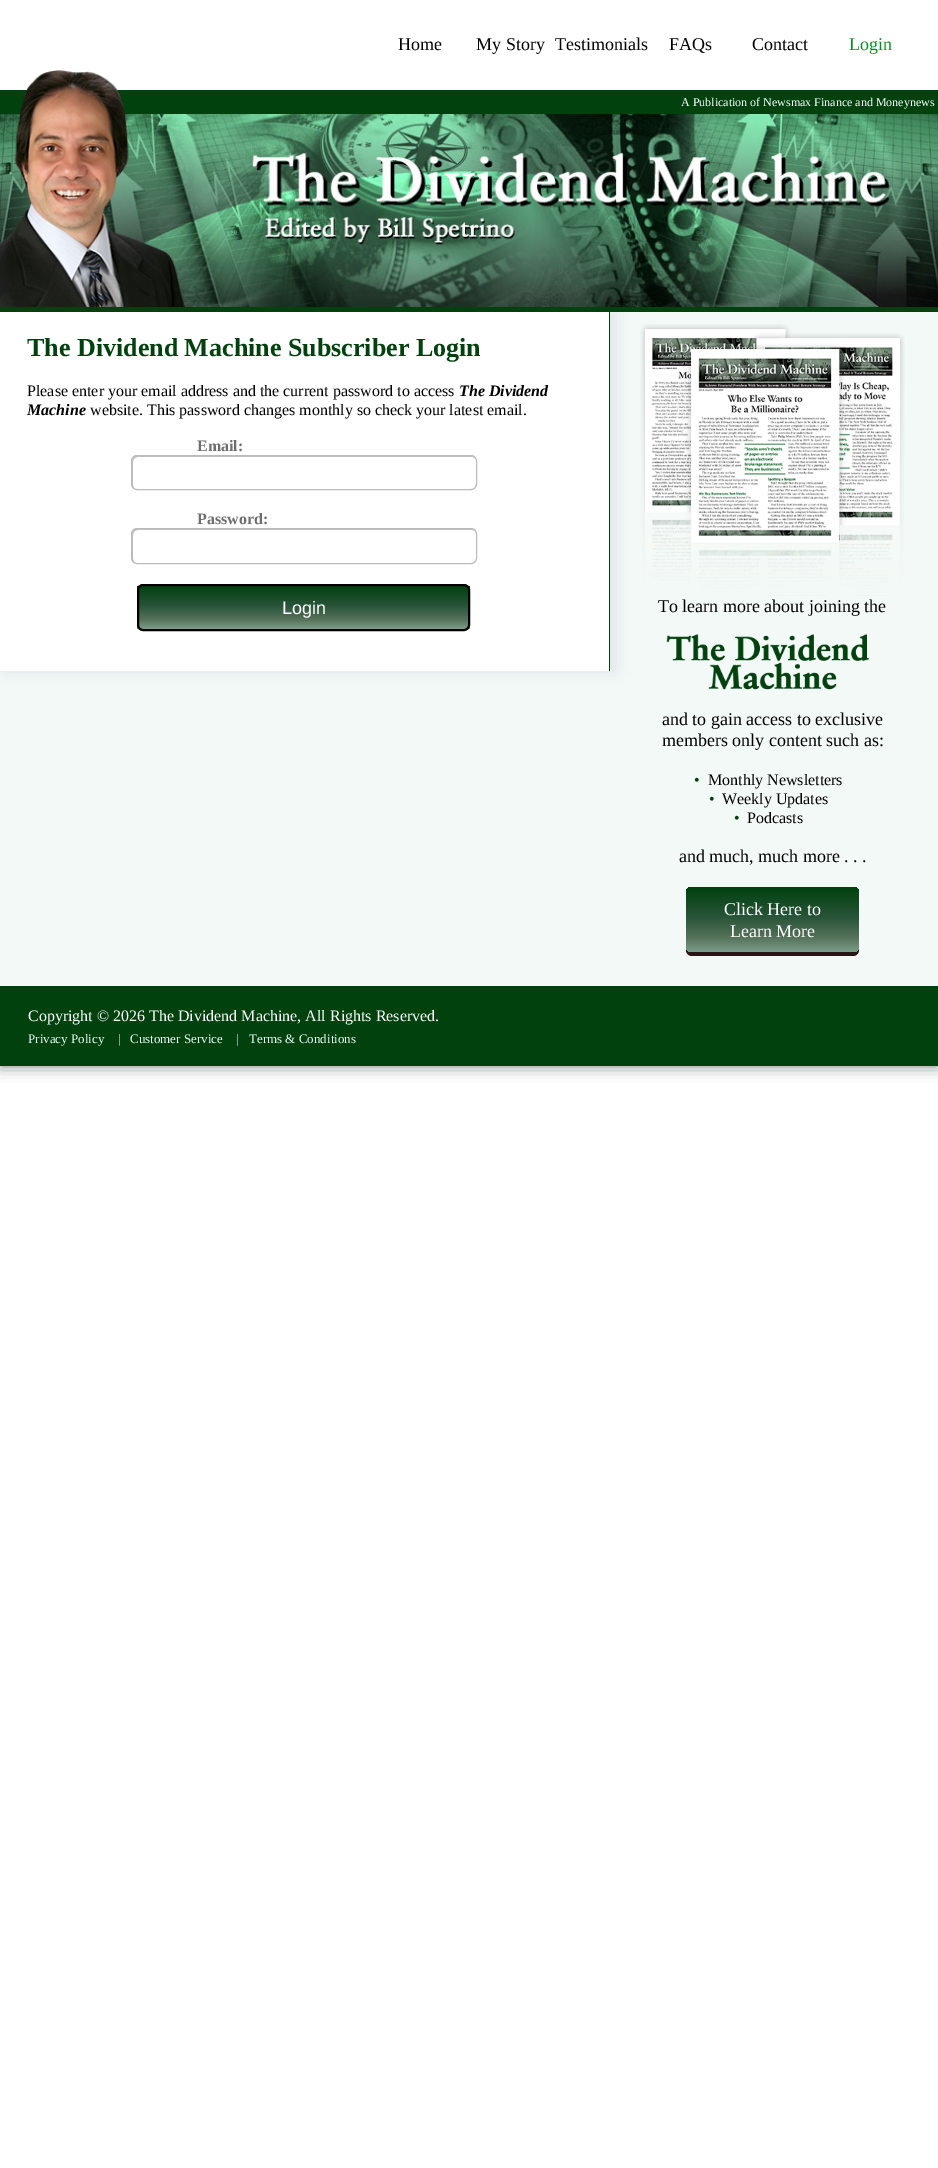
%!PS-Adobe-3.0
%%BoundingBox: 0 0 938 2168
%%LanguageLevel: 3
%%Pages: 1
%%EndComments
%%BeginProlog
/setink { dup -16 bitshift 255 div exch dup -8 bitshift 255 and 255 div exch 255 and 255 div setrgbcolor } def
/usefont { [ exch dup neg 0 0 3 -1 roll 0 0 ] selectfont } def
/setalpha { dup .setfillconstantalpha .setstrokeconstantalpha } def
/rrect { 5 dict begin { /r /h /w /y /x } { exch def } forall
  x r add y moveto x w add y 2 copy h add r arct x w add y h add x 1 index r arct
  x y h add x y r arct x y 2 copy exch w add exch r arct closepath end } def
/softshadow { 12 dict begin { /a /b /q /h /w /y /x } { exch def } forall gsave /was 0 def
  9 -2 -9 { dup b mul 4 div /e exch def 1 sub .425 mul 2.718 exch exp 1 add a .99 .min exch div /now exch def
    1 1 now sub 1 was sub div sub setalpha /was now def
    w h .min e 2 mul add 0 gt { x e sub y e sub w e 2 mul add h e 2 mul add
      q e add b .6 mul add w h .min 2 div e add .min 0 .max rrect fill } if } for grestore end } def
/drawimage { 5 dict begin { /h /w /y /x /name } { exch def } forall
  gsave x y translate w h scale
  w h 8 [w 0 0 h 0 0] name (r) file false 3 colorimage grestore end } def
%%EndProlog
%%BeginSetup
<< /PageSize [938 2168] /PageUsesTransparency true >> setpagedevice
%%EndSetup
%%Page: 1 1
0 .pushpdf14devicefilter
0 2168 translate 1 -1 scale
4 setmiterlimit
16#FFFFFF setink
0 0 938 2168 rectfill
16#000000 setink
0 0 938 1066 0 7.5 0.5 softshadow
16#FFFFFF setink
0 0 938 90 rectfill
16#00410E setink
0 307 938 5 rectfill
/LiberationSerif-Regular 18 usefont
16#000000 setink
[
    [(Home) 398 50]
    [(My Story) 476 50]
    [(Testimonials) 555 50]
    [(FAQs) 669 50]
    [(Contact) 752 50]
] { aload pop moveto show } forall
16#088F25 setink
849 50 moveto (Login) show
16#00410E setink
0 90 938 24 rectfill
16#F3F9F6 setink
0 312 938 674 rectfill
gsave
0 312 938 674 rectclip
16#1D3454 setink
4 312 611 359 0 7.5 0.1 softshadow
grestore
(img2.raw) 0 114 938 193 drawimage
(img1.raw) 0 70 185 237 drawimage
/LiberationSerif-Regular 12 usefont
16#FFFFFF setink
681 106 moveto (A Publication of Newsmax Finance and Moneynews) show
0 312 609 359 rectfill
16#00410E setink
609 312 1 359 rectfill
/LiberationSerif-Bold 26 usefont
27 356 moveto (The Dividend Machine Subscriber Login) show
/LiberationSerif-Regular 16 usefont
16#000000 setink
27 396 moveto (Please enter your email address and the current password to access) show
/LiberationSerif-BoldItalic 16 usefont
459 396 moveto (The Dividend) show
27 415 moveto (Machine) show
/LiberationSerif-Regular 16 usefont
90 415 moveto (website. This password changes monthly so check your latest email.) show
/LiberationSerif-Bold 16 usefont
16#6F6D6D setink
197 451 moveto (Email:) show
16#BFBFBF setink
138 457 moveto 472 457 lineto 475 458 lineto 474 457 472 456 471 456 curveto 137 456 lineto 134 456 132 458 132 461 curveto 132 484 lineto 132 485 133 487 134 488 curveto 133 485 lineto 133 462 lineto 133 459 135 457 138 457 curveto closepath fill
16#BBBBBB setink
131.5 455.5 345 34 5.5 rrect stroke
16#6F6D6D setink
197 524 moveto (Password:) show
16#BFBFBF setink
138 530 moveto 472 530 lineto 475 531 lineto 474 530 472 529 471 529 curveto 137 529 lineto 134 529 132 531 132 534 curveto 132 558 lineto 132 559 133 561 134 562 curveto 133 559 lineto 133 535 lineto 133 532 135 530 138 530 curveto closepath fill
16#BBBBBB setink
131.5 528.5 345 35 5.5 rrect stroke
gsave
137 584 333 47 6 rrect clip newpath
gsave 137 586 moveto 470 586 lineto 470 629 lineto 137 629 lineto closepath clip newpath
<< /ShadingType 2 /ColorSpace /DeviceRGB /Coords [304 586 304 629] /Extend [true true] /Function << /FunctionType 3 /Domain [0 1] /Functions [<< /FunctionType 2 /Domain [0 1] /C0 [0 0.255 0.055] /C1 [0.157 0.329 0.224] /N 1 >> << /FunctionType 2 /Domain [0 1] /C0 [0.157 0.329 0.224] /C1 [0.337 0.447 0.357] /N 1 >> << /FunctionType 2 /Domain [0 1] /C0 [0.337 0.447 0.357] /C1 [0.482 0.62 0.541] /N 1 >>] /Bounds [0.46 0.78] /Encode [0 1 0 1 0 1] >> >> shfill grestore
grestore
16#000000 setink
2 setlinewidth
138 585 331 45 5 rrect stroke
/LiberationSans-Regular 18 usefont
16#FFFFFF setink
282 614 moveto (Login) show
(img3.raw) 640 324 265 272 drawimage
/LiberationSerif-Regular 18 usefont
16#000000 setink
658 612 moveto (To learn more about joining the) show
(img4.raw) 666 634 203 56 drawimage
662 725 moveto (and to gain access to exclusive) show
662 746 moveto (members only content such as:) show
/LiberationSerif-Regular 16 usefont
16#00410E setink
694 785 moveto (•) show
16#000000 setink
708 785 moveto (Monthly Newsletters) show
16#00410E setink
709 804 moveto (•) show
16#000000 setink
722 804 moveto (Weekly Updates) show
16#00410E setink
734 823 moveto (•) show
16#000000 setink
747 823 moveto (Podcasts) show
/LiberationSerif-Regular 18 usefont
679 862 moveto (and much, much more . . .) show
16#271613 setink
686 887 173 69 6 rrect fill
gsave 686 887 173 65 6 rrect clip newpath
<< /ShadingType 2 /ColorSpace /DeviceRGB /Coords [773 887 773 952] /Extend [true true] /Function << /FunctionType 3 /Domain [0 1] /Functions [<< /FunctionType 2 /Domain [0 1] /C0 [0 0.255 0.055] /C1 [0.157 0.329 0.224] /N 1 >> << /FunctionType 2 /Domain [0 1] /C0 [0.157 0.329 0.224] /C1 [0.337 0.447 0.357] /N 1 >> << /FunctionType 2 /Domain [0 1] /C0 [0.337 0.447 0.357] /C1 [0.482 0.62 0.541] /N 1 >>] /Bounds [0.46 0.78] /Encode [0 1 0 1 0 1] >> >> shfill grestore
16#FFFFFF setink
724 915 moveto (Click Here to) show
730 937 moveto (Learn More) show
16#00410E setink
0 986 938 80 rectfill
/LiberationSerif-Regular 16 usefont
16#FFFFFF setink
28 1021 moveto (Copyright © 2026 The Dividend Machine, All Rights Reserved.) show
/LiberationSerif-Regular 13 usefont
16#ECFAF2 setink
[
    [(Privacy Policy) 28 1043]
    [(|) 118 1043]
    [(Customer Service) 130 1043]
    [(|) 236 1043]
    [(Terms & Conditions) 249 1043]
] { aload pop moveto show } forall
.poppdf14devicefilter showpage
%%EOF
